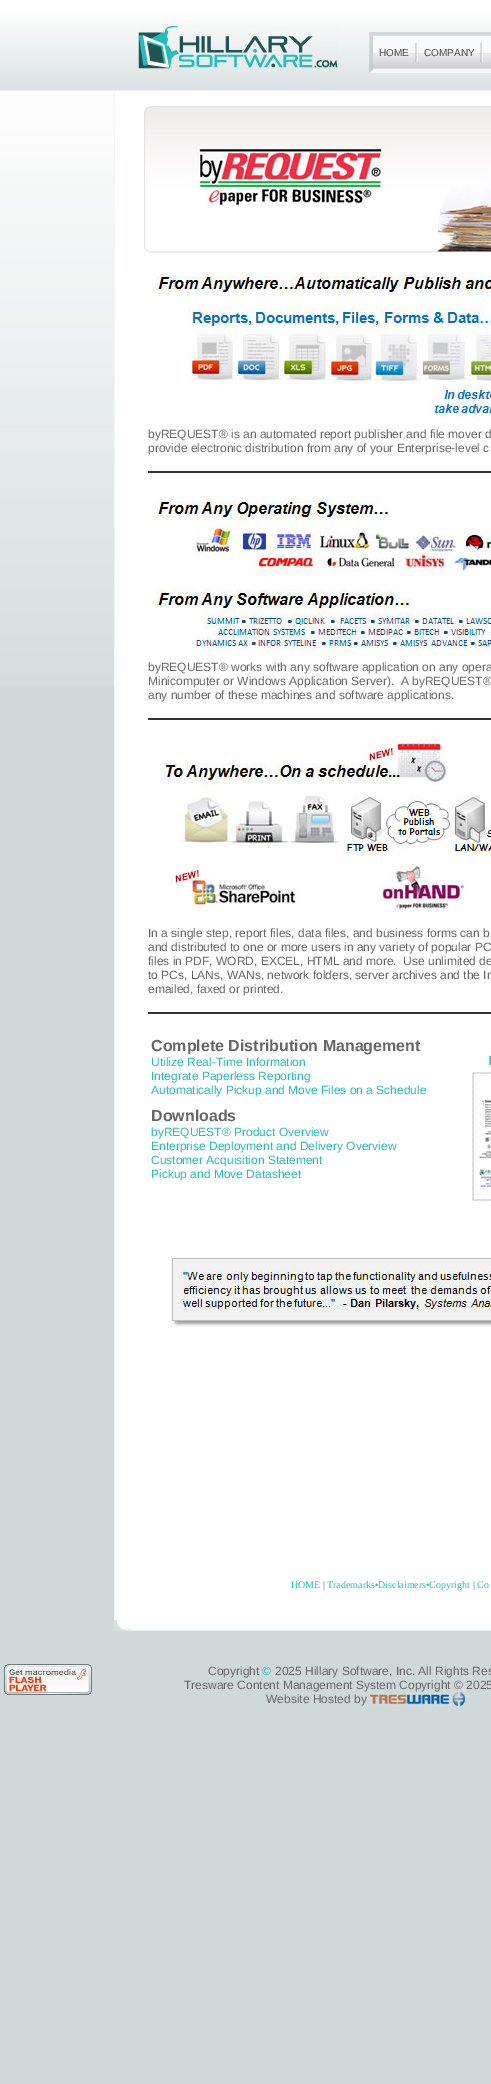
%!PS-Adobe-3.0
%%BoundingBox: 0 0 491 2084
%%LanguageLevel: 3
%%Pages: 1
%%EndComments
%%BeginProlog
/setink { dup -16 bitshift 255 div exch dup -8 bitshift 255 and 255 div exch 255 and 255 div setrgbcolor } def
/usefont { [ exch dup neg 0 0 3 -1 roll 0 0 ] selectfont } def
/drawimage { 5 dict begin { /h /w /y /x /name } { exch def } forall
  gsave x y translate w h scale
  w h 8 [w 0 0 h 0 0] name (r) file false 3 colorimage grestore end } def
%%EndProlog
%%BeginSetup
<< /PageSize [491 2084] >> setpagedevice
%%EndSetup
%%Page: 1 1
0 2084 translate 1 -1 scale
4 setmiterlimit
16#CFD9DA setink
0 0 491 2084 rectfill
(img1.raw) 0 0 491 686 drawimage
(img2.raw) 138 26 200 43 drawimage
(img3.raw) 369 32 4 41 drawimage
(img4.raw) 373 32 42 41 drawimage
/LiberationSans-Regular 10 usefont
16#4D4D4D setink
379 56 moveto (HOME) show
(img5.raw) 415 32 3 41 drawimage
(img6.raw) 418 32 62 41 drawimage
424 56 moveto (COMPANY) show
(img5.raw) 480 32 3 41 drawimage
(img7.raw) 483 32 8 41 drawimage
16#F4F6F5 setink
114 91 1 1529 rectfill
16#FFFFFF setink
115 92 376 1528 rectfill
(img8.raw) 144 106 347 148 drawimage
(img9.raw) 156 276 335 141 drawimage
/LiberationSans-Regular 12 usefont
16#666666 setink
148 438 moveto (byREQUEST® is an automated report publisher and file mover d) show
148 452 moveto (provide electronic distribution from any of your Enterprise-level c) show
16#333333 setink
148 471 343 2 rectfill
(img10.raw) 156 501 335 149 drawimage
16#666666 setink
[
    [(byREQUEST® works with any software application on any opera) 148 671]
    [(Minicomputer or Windows Application Server\).  A byREQUEST®) 148 685]
    [(any number of these machines and software applications.) 148 699]
] { aload pop moveto show } forall
16#333333 setink
148 718 343 2 rectfill
(img11.raw) 162 739 329 112 drawimage
(img12.raw) 170 863 128 43 drawimage
(img13.raw) 381 863 88 47 drawimage
16#666666 setink
[
    [(In a single step, report files, data files, and business forms can b) 148 937]
    [(and distributed to one or more users in any variety of popular PC) 148 951]
    [(files in PDF, WORD, EXCEL, HTML and more.  Use unlimited de) 148 965]
    [(to PCs, LANs, WANs, network folders, server archives and the In) 148 979]
    [(emailed, faxed or printed.) 148 993]
] { aload pop moveto show } forall
16#333333 setink
148 1012 343 2 rectfill
/LiberationSans-Bold 16 usefont
16#666666 setink
151 1051 moveto (Complete Distribution Management) show
/LiberationSans-Regular 12 usefont
16#23BCB9 setink
[
    [(Utilize Real-Time Information) 151 1066]
    [(Integrate Paperless Reporting) 151 1080]
    [(Automatically Pickup and Move Files on a Schedule) 151 1094]
] { aload pop moveto show } forall
/LiberationSans-Bold 16 usefont
16#666666 setink
151 1121 moveto (Downloads) show
/LiberationSans-Regular 12 usefont
16#23BCB9 setink
[
    [(byREQUEST® Product Overview) 151 1136]
    [(Enterprise Deployment and Delivery Overview) 151 1150]
    [(Customer Acquisition Statement) 151 1164]
    [(Pickup and Move Datasheet) 151 1178]
] { aload pop moveto show } forall
(img14.raw) 472 1056 19 145 drawimage
(img15.raw) 168 1257 323 70 drawimage
/LiberationSerif-Regular 10 usefont
291 1588 moveto (HOME) show
16#666666 setink
323 1588 moveto (|) show
16#23BCB9 setink
327 1588 moveto (Trademarks•Disclaimers•Copyright) show
16#666666 setink
473 1588 moveto (|) show
16#23BCB9 setink
477 1588 moveto (Co) show
(img16.raw) 113 1620 378 11 drawimage
(img17.raw) 4 1664 88 31 drawimage
/LiberationSans-Regular 12 usefont
16#666666 setink
208 1675 moveto (Copyright) show
16#23BCB9 setink
262 1675 moveto (©) show
16#666666 setink
[
    [(2025 Hillary Software, Inc. All Rights Res) 275 1675]
    [(Tresware Content Management System Copyright © 2025) 184 1689]
    [(Website Hosted by) 266 1703]
] { aload pop moveto show } forall
(img18.raw) 370 1692 95 14 drawimage
showpage
%%EOF
